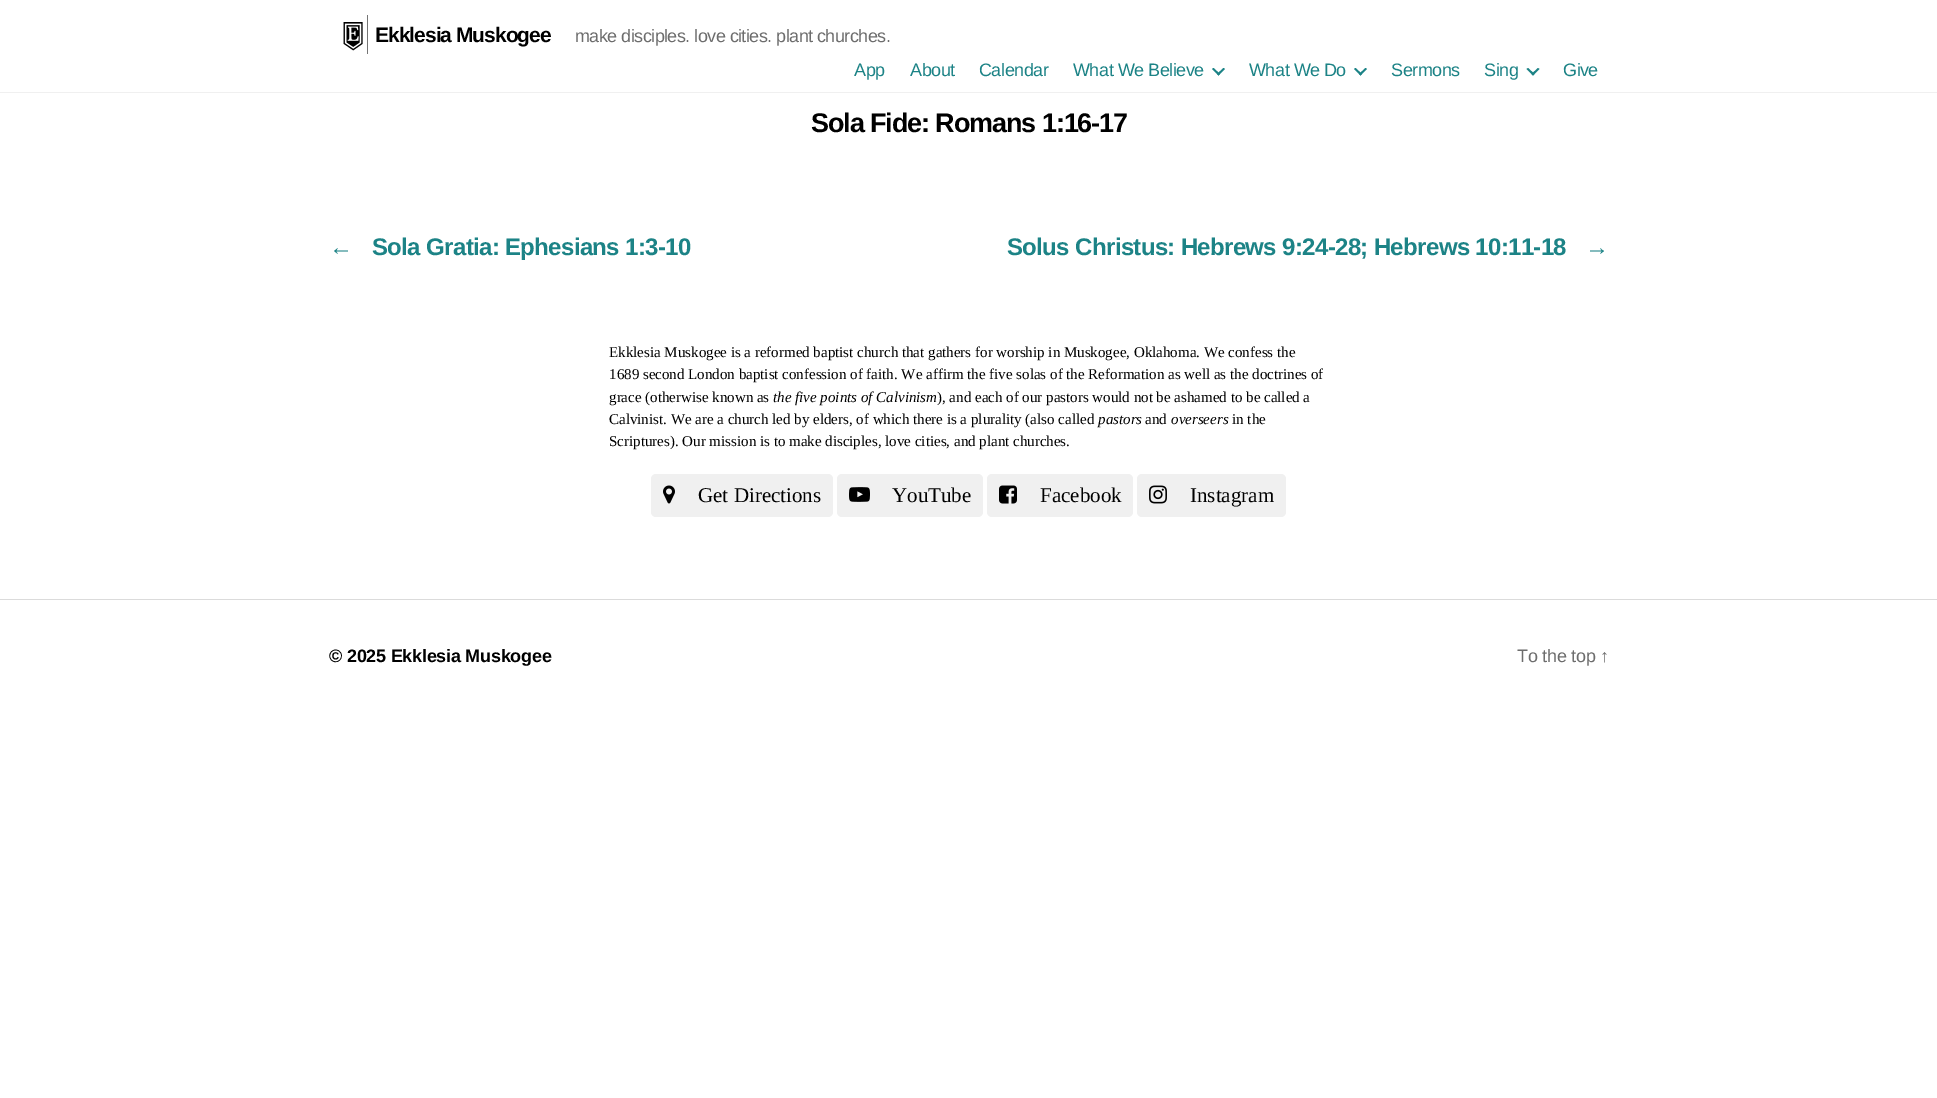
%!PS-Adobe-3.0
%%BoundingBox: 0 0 1937 1098
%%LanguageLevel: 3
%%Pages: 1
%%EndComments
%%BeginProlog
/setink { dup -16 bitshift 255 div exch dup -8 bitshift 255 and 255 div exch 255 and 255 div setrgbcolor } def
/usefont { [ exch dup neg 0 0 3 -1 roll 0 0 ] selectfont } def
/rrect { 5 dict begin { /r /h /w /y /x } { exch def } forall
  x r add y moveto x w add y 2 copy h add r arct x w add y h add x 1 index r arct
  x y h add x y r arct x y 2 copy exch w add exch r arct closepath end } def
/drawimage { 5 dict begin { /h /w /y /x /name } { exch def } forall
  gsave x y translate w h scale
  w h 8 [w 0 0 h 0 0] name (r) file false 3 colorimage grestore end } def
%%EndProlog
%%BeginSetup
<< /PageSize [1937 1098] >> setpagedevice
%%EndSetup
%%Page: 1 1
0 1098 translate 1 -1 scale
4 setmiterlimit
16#FFFFFF setink
0 0 1937 1098 rectfill
16#F0F0F0 setink
0 92 1937 1 rectfill
(img1.raw) 343 15 25 39 drawimage
/LiberationSans-Bold 21 usefont
16#000000 setink
375 42 moveto -1 0 (Ekklesia Muskogee) ashow
/LiberationSans-Regular 18 usefont
16#6D6D6D setink
575 42 moveto -0.55 0 (make disciples. love cities. plant churches.) ashow
16#1C8386 setink
854 76 moveto -0.5 0 (App) ashow
910 76 moveto -0.5 0 (About) ashow
979 76 moveto -0.5 0 (Calendar) ashow
1073 76 moveto -0.5 0 (What We Believe) ashow
1212 69 moveto 1213.5 68 lineto 1220 74 lineto 1218.5 75.5 lineto closepath fill
1217 74 moveto 1223.5 68 lineto 1225 69 lineto 1218.5 75.5 lineto closepath fill
1249 76 moveto -0.5 0 (What We Do) ashow
1354 69 moveto 1355.5 68 lineto 1362 74 lineto 1360.5 75.5 lineto closepath fill
1359 74 moveto 1365.5 68 lineto 1367 69 lineto 1360.5 75.5 lineto closepath fill
1391 76 moveto -0.5 0 (Sermons) ashow
1484 76 moveto -0.5 0 (Sing) ashow
1526.5 69 moveto 1528 68 lineto 1534.5 74 lineto 1533 75.5 lineto closepath fill
1531.5 74 moveto 1538 68 lineto 1539.5 69 lineto 1533 75.5 lineto closepath fill
1563 76 moveto -0.5 0 (Give) ashow
/LiberationSans-Bold 27 usefont
16#000000 setink
811 132 moveto -1.1 0 (Sola Fide: Romans 1:16-17) ashow
/LiberationSans-Bold 24 usefont
16#1C8386 setink
329 255 moveto -0.65 0 (←) ashow
372 255 moveto -0.65 0 (Sola Gratia: Ephesians 1:3-10) ashow
1007 255 moveto -0.65 0 (Solus Christus: Hebrews 9:24-28; Hebrews 10:11-18) ashow
1585 255 moveto -0.65 0 (→) ashow
/LiberationSerif-Regular 15 usefont
16#000000 setink
[
    [(Ekklesia Muskogee is a reformed baptist church that gathers for worship in Muskogee, Oklahoma. We confess the) 609 357]
    [(1689 second London baptist confession of faith. We affirm the five solas of the Reformation as well as the doctrines of) 609 379]
    [(grace \(otherwise known as) 609 402]
] { aload pop moveto show } forall
/LiberationSerif-Italic 15 usefont
773 402 moveto (the five points of Calvinism) show
/LiberationSerif-Regular 15 usefont
937 402 moveto (\), and each of our pastors would not be ashamed to be called a) show
609 424 moveto (Calvinist. We are a church led by elders, of which there is a plurality \(also called) show
/LiberationSerif-Italic 15 usefont
1098 424 moveto (pastors) show
/LiberationSerif-Regular 15 usefont
1145 424 moveto (and) show
/LiberationSerif-Italic 15 usefont
1171 424 moveto (overseers) show
/LiberationSerif-Regular 15 usefont
1232 424 moveto (in the) show
609 446 moveto (Scriptures\). Our mission is to make disciples, love cities, and plant churches.) show
16#F0F0F0 setink
651 474 182 43 5 rrect fill
(img2.raw) 663 485 12 19 drawimage
/LiberationSerif-Regular 21 usefont
16#000000 setink
698 502 moveto (Get Directions) show
16#F0F0F0 setink
837 474 146 43 5 rrect fill
(img3.raw) 849 487 21 15 drawimage
16#000000 setink
892 502 moveto (YouTube) show
16#F0F0F0 setink
987 474 146 43 5 rrect fill
(img4.raw) 999 485 18 19 drawimage
16#000000 setink
1040 502 moveto (Facebook) show
16#F0F0F0 setink
1137 474 149 43 5 rrect fill
(img5.raw) 1149 485 18 19 drawimage
16#000000 setink
1190 502 moveto (Instagram) show
16#DBDBDB setink
0 599 1937 1 rectfill
/LiberationSans-Bold 18 usefont
16#000000 setink
329 662 moveto -0.25 0 (© 2025 Ekklesia Muskogee) ashow
/LiberationSans-Regular 18 usefont
16#6D6D6D setink
1517 662 moveto -0.25 0 (To the top ↑) ashow
showpage
%%EOF
